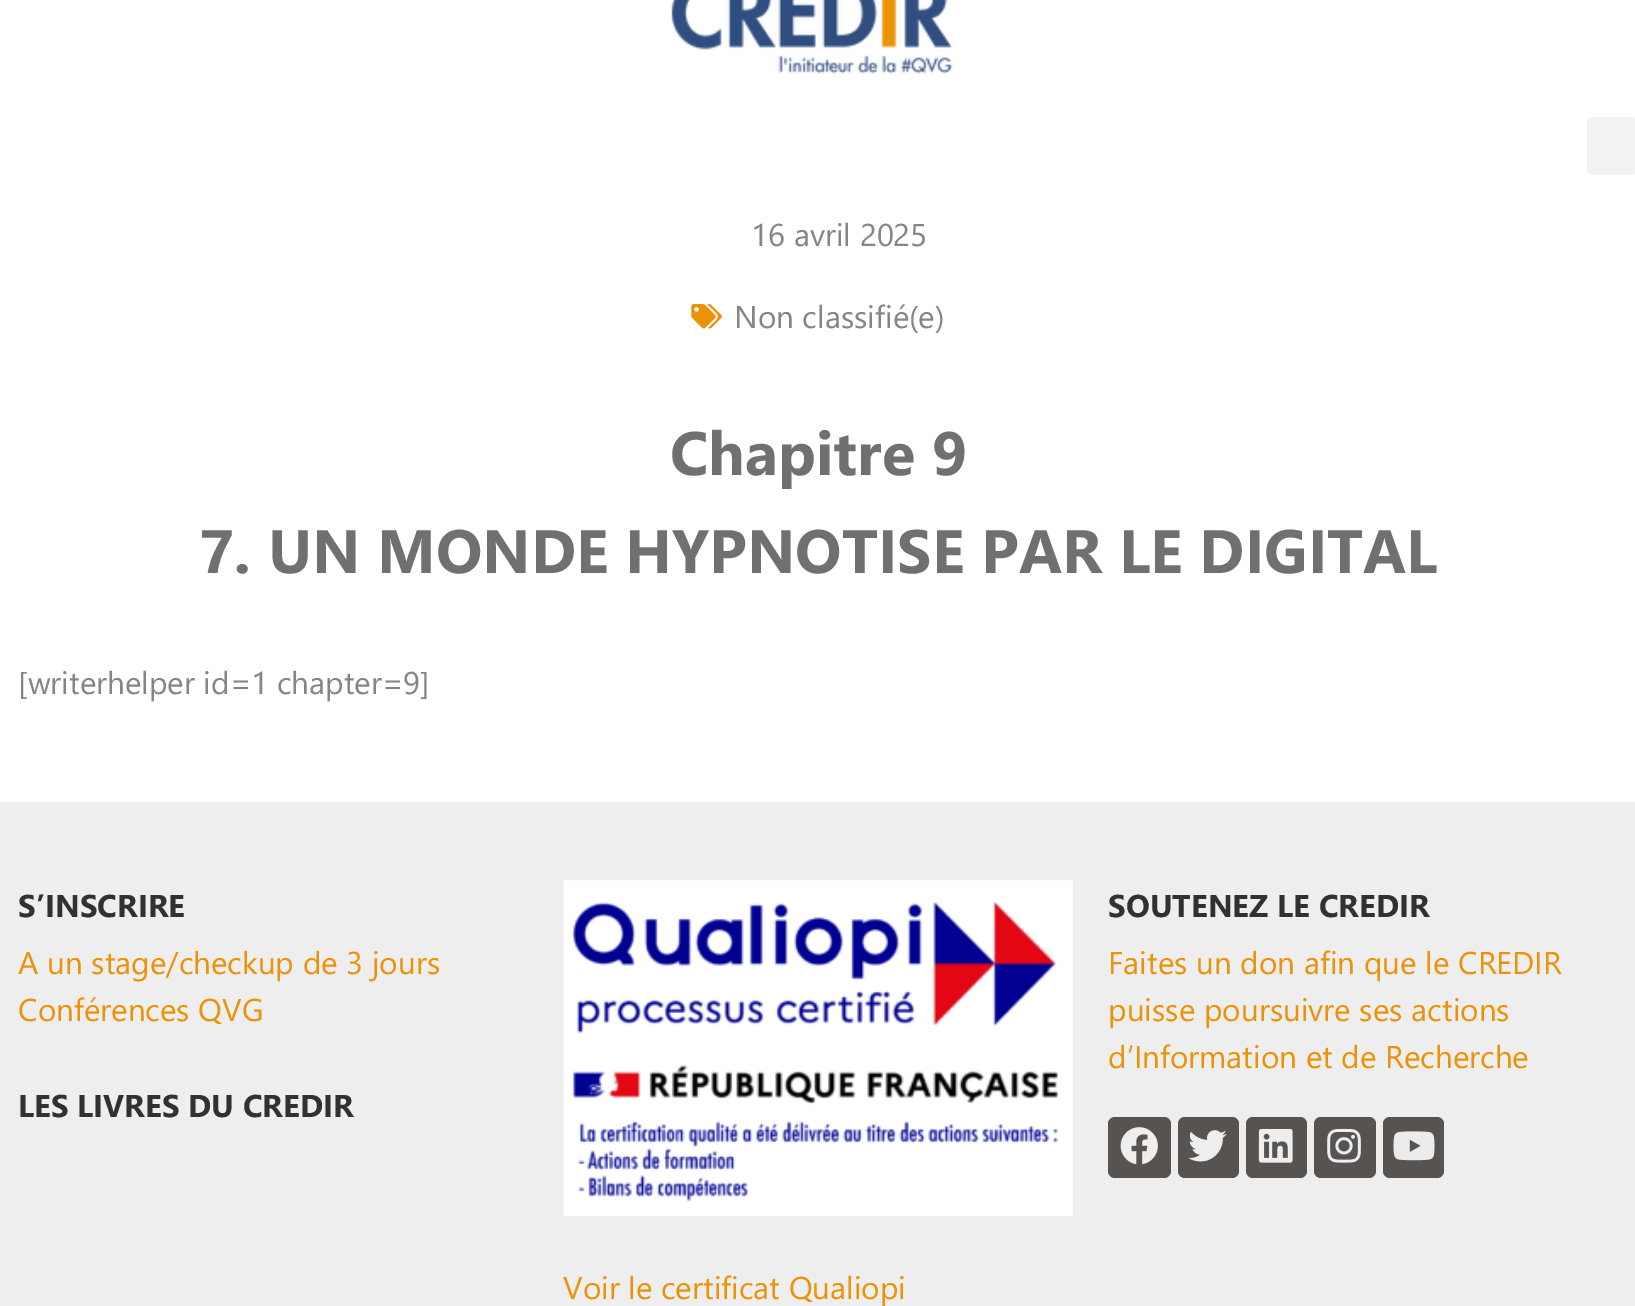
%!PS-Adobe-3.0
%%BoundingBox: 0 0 1635 1306
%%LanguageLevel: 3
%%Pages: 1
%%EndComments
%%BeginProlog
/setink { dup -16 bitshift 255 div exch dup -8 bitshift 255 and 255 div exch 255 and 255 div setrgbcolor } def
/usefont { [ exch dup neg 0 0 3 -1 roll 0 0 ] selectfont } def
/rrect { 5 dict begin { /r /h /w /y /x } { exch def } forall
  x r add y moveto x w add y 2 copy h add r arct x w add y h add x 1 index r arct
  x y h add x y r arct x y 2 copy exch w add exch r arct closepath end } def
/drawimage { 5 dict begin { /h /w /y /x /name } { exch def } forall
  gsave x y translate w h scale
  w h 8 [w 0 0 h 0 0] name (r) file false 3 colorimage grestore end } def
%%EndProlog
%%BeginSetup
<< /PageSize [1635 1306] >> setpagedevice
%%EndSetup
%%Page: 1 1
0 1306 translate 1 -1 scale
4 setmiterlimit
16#FFFFFF setink
0 0 1635 1306 rectfill
(img1.raw) 671 0 284 77 drawimage
16#F2F2F2 setink
1587 117 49 58 5 rrect fill
/SegoeUI-Regular 31.5 usefont
16#858585 setink
751 246 moveto (16 avril 2025) show
(img2.raw) 691 304 31 25 drawimage
734 328 moveto (Non classifié\(e\)) show
/SegoeUI-Bold 61.25 usefont
16#707070 setink
670 475 moveto (Chapitre 9) show
199 573 moveto (7. UN MONDE HYPNOTISE PAR LE DIGITAL) show
/SegoeUI-Regular 31.5 usefont
16#858585 setink
18 694 moveto ([writerhelper id=1 chapter=9]) show
16#EEEEEE setink
0 802 1635 504 rectfill
/SegoeUI-Bold 31.5 usefont
16#313131 setink
18 917 moveto (S’INSCRIRE) show
/SegoeUI-Regular 31.5 usefont
16#EC9208 setink
18 974 moveto (A un stage/checkup de 3 jours) show
18 1021 moveto (Conférences QVG) show
/SegoeUI-Bold 31.5 usefont
16#313131 setink
18 1117 moveto (LES LIVRES DU CREDIR) show
1108 917 moveto (SOUTENEZ LE CREDIR) show
/SegoeUI-Regular 31.5 usefont
16#EC9208 setink
[
    [(Faites un don afin que le CREDIR) 1108 974]
    [(puisse poursuivre ses actions) 1108 1021]
    [(d’Information et de Recherche) 1108 1068]
] { aload pop moveto show } forall
16#575351 setink
1108 1117 63 61 7 rrect fill
(img3.raw) 1120 1127 38 38 drawimage
1178 1117 61 61 7 rrect fill
(img4.raw) 1188 1130 39 32 drawimage
1246 1117 61 61 7 rrect fill
(img5.raw) 1258 1129 35 34 drawimage
1314 1117 62 61 7 rrect fill
(img6.raw) 1327 1128 34 35 drawimage
1383 1117 61 61 7 rrect fill
(img7.raw) 1393 1131 42 30 drawimage
(img8.raw) 563 880 510 337 drawimage
16#EC9208 setink
563 1299 moveto (Voir le certificat Qualiopi) show
showpage
%%EOF
